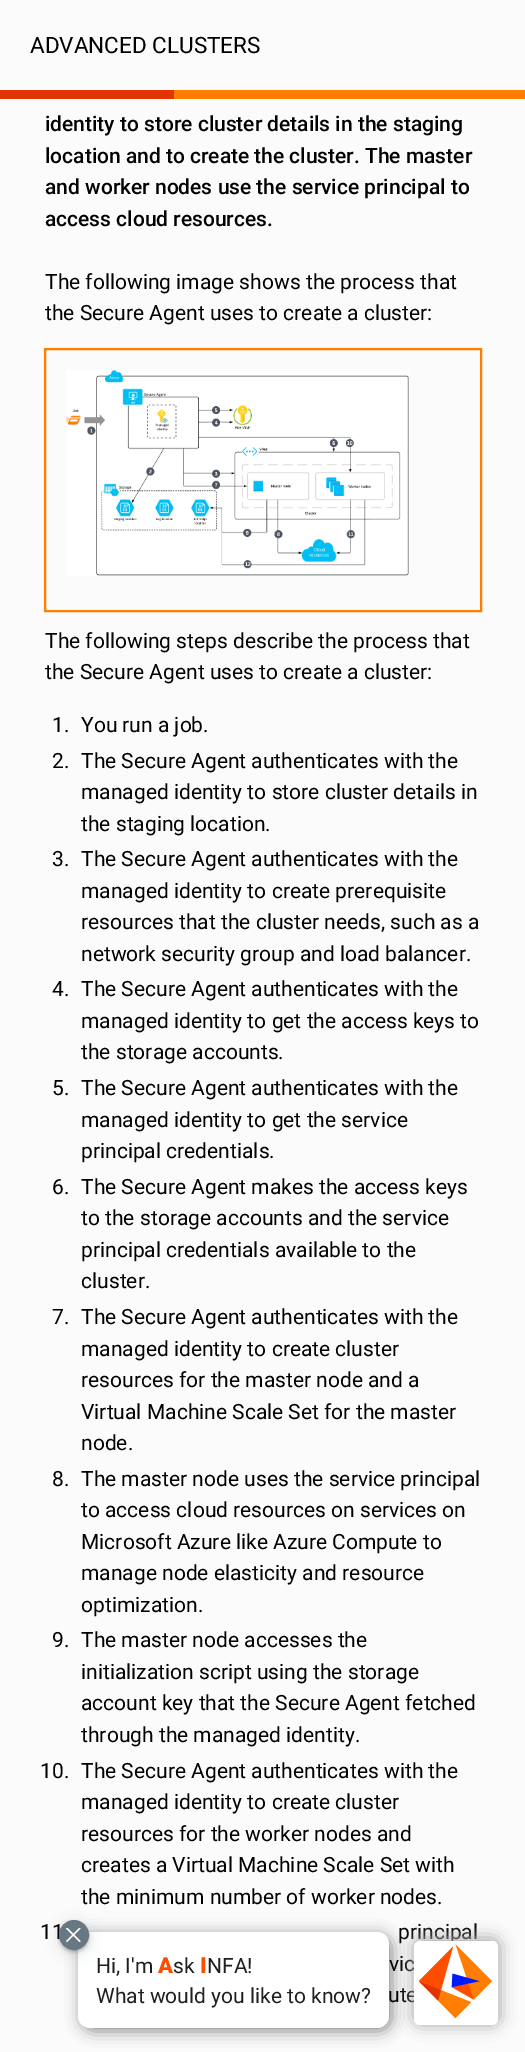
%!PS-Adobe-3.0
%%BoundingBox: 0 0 525 2052
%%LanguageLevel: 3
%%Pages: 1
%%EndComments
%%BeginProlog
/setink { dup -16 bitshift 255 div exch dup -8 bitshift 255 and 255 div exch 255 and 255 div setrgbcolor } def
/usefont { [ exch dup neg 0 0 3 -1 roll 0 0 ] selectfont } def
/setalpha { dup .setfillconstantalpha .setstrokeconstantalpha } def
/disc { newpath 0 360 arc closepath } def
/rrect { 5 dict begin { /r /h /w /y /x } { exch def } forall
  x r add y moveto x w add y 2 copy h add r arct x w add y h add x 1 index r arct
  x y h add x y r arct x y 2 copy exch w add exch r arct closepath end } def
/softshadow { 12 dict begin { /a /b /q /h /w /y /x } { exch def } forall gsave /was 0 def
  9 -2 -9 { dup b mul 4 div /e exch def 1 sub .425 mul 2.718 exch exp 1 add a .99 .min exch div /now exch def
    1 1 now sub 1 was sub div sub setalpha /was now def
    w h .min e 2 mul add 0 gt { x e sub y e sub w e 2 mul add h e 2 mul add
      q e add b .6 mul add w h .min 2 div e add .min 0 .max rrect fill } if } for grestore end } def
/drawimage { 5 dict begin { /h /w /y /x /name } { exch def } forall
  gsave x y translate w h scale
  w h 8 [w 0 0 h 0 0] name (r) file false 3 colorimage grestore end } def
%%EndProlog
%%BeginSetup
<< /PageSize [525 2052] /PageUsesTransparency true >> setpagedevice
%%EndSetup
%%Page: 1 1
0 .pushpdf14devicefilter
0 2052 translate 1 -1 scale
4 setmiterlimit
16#FBFBFB setink
0 0 525 2052 rectfill
/Roboto-Regular 22.5 usefont
16#000000 setink
30 53 moveto (ADVANCED CLUSTERS) show
16#FF7D00 setink
174 90 351 9 rectfill
16#E23400 setink
0 90 174 9 rectfill
/Roboto-Medium 21 usefont
16#000000 setink
[
    [(identity to store cluster details in the staging) 45 131]
    [(location and to create the cluster. The master) 45 163]
    [(and worker nodes use the service principal to) 45 194]
    [(access cloud resources.) 45 226]
] { aload pop moveto show } forall
/Roboto-Regular 21 usefont
45 289 moveto (The following image shows the process that) show
45 320 moveto (the Secure Agent uses to create a cluster:) show
(img1.raw) 66 370 343 206 drawimage
16#FF7D00 setink
2 setlinewidth
45 349 436 262 rectstroke
16#000000 setink
[
    [(The following steps describe the process that) 45 648]
    [(the Secure Agent uses to create a cluster:) 45 679]
    [(1.) 52 732]
    [(You run a job.) 81 732]
    [(2.) 52 768]
    [(The Secure Agent authenticates with the) 81 768]
    [(managed identity to store cluster details in) 81 799]
    [(the staging location.) 81 831]
    [(3.) 52 866]
    [(The Secure Agent authenticates with the) 81 866]
    [(managed identity to create prerequisite) 81 898]
    [(resources that the cluster needs, such as a) 81 929]
    [(network security group and load balancer.) 81 961]
    [(4.) 52 996]
    [(The Secure Agent authenticates with the) 81 996]
    [(managed identity to get the access keys to) 81 1028]
    [(the storage accounts.) 81 1059]
    [(5.) 52 1095]
    [(The Secure Agent authenticates with the) 81 1095]
    [(managed identity to get the service) 81 1127]
    [(principal credentials.) 81 1158]
    [(6.) 52 1194]
    [(The Secure Agent makes the access keys) 81 1194]
    [(to the storage accounts and the service) 81 1225]
    [(principal credentials available to the) 81 1257]
    [(cluster.) 81 1288]
    [(7.) 52 1324]
    [(The Secure Agent authenticates with the) 81 1324]
    [(managed identity to create cluster) 81 1356]
    [(resources for the master node and a) 81 1387]
    [(Virtual Machine Scale Set for the master) 81 1419]
    [(node.) 81 1450]
    [(8.) 52 1486]
    [(The master node uses the service principal) 81 1486]
    [(to access cloud resources on services on) 81 1517]
    [(Microsoft Azure like Azure Compute to) 81 1549]
    [(manage node elasticity and resource) 81 1580]
    [(optimization.) 81 1612]
    [(9.) 52 1647]
    [(The master node accesses the) 81 1647]
    [(initialization script using the storage) 81 1679]
    [(account key that the Secure Agent fetched) 81 1710]
    [(through the managed identity.) 81 1742]
    [(10.) 40 1778]
    [(The Secure Agent authenticates with the) 81 1778]
    [(managed identity to create cluster) 81 1809]
    [(resources for the worker nodes and) 81 1841]
    [(creates a Virtual Machine Scale Set with) 81 1872]
    [(the minimum number of worker nodes.) 81 1904]
    [(11) 40 1939]
    [(principal) 398 1939]
    [(vic) 389 1971]
    [(ute) 388 2002]
] { aload pop moveto show } forall
81 1935 311 96 12 7.5 0.45 softshadow
16#FFFFFF setink
78 1932 311 96 12 rrect fill
16#000000 setink
59 1922 30 30 15 1.5 0.2 softshadow
16#353F45 setink
59 1923 30 30 15 7.5 0.15 softshadow
16#687882 setink
74 1935 14 disc gsave fill grestore
stroke
(img2.raw) 66 1928 15 14 drawimage
16#212021 setink
96 1973 moveto (Hi, I'm) show
/Roboto-Black 22 usefont
16#FF4D00 setink
158 1973 moveto (A) show
/Roboto-Regular 21 usefont
16#212021 setink
173 1973 moveto (sk) show
/Roboto-Black 22 usefont
16#FF4D00 setink
200 1973 moveto (I) show
/Roboto-Regular 21 usefont
16#212021 setink
207 1973 moveto (NFA!) show
96 2003 moveto (What would you like to know?) show
16#A9A9A9 setink
413 1938 87 87 8 8 1 softshadow
16#FFFFFF setink
414 1941 84 84 6 rrect fill
(img3.raw) 419 1944 74 75 drawimage
.poppdf14devicefilter showpage
%%EOF
